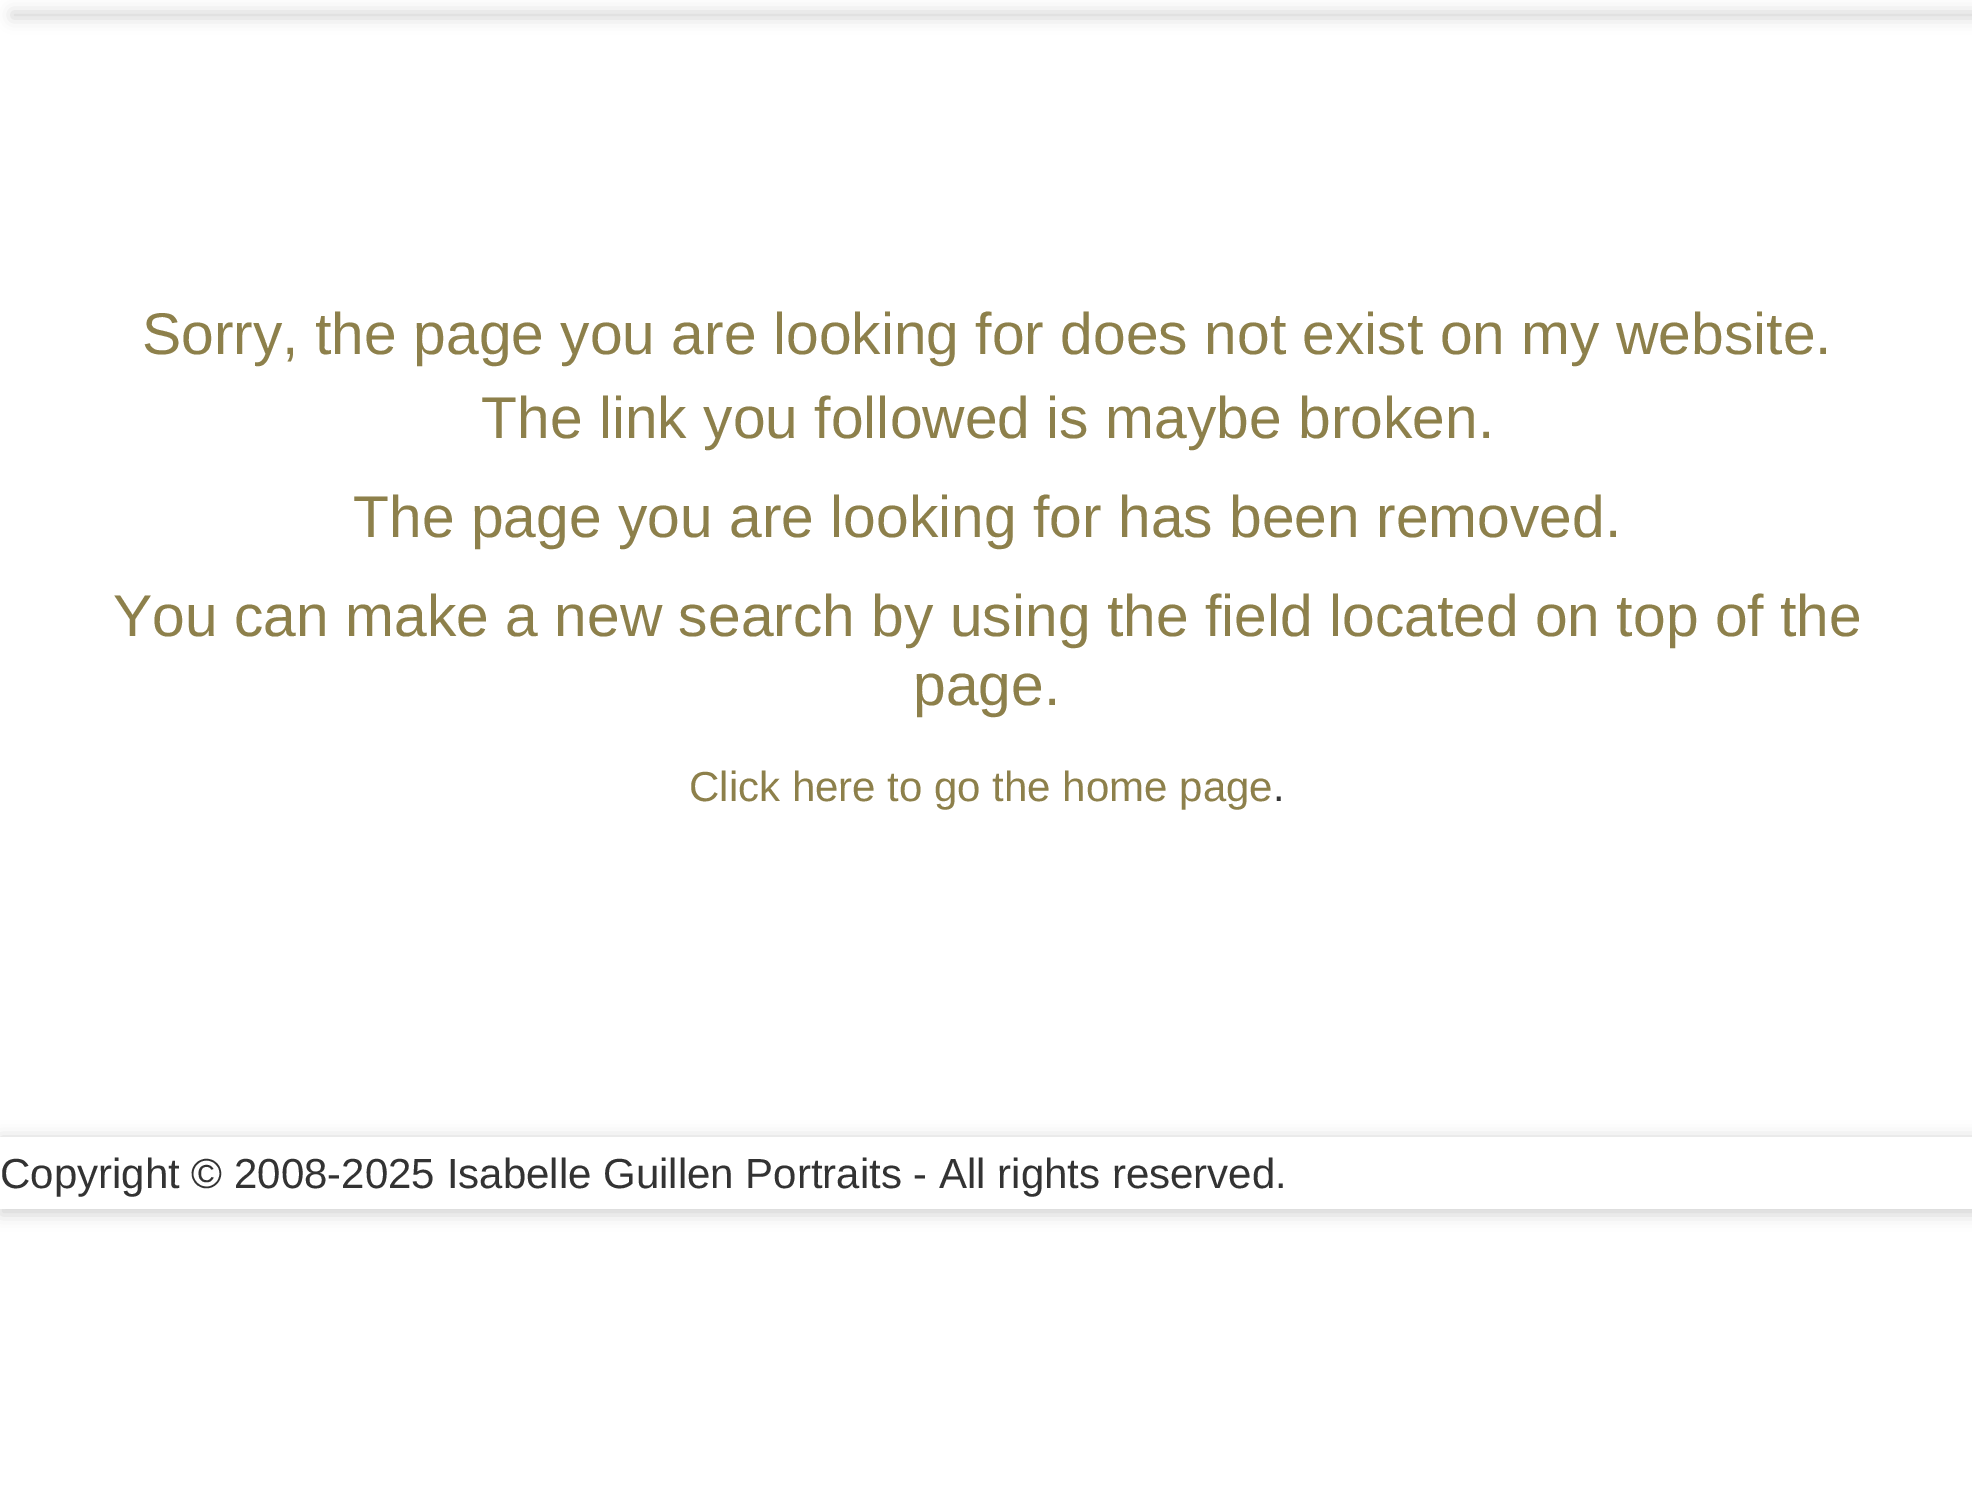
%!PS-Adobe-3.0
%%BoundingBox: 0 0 1972 1498
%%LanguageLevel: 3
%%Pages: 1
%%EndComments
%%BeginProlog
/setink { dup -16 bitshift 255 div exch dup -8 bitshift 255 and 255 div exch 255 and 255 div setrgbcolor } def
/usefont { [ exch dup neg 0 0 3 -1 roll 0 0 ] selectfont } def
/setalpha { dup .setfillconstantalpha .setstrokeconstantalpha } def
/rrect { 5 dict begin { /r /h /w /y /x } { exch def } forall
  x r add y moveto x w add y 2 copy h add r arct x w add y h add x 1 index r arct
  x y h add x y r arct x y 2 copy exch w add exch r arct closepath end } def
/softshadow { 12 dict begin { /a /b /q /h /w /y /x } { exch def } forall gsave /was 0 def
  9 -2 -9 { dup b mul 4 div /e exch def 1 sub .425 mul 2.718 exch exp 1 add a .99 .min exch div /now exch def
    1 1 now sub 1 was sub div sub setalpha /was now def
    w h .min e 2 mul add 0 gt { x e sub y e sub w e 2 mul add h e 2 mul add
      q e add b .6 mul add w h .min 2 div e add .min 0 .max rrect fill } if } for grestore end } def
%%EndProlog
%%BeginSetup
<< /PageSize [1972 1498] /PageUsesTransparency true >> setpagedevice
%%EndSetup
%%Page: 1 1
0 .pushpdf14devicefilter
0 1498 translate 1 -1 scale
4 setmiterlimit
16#FFFFFF setink
0 0 1972 1498 rectfill
16#D4D4D4 setink
12 12 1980 6 0 7.5 1 softshadow
/LiberationSans-Regular 58.8 usefont
16#8D804B setink
[
    [(Sorry, the page you are looking for does not exist on my website.) 142 354]
    [(The link you followed is maybe broken.) 481 438]
    [(The page you are looking for has been removed.) 353 537]
    [(You can make a new search by using the field located on top of the) 113 636]
    [(page.) 913 705]
] { aload pop moveto show } forall
/LiberationSans-Regular 42 usefont
689 801 moveto (Click here to go the home page) show
16#333333 setink
1273 801 moveto (.) show
gsave
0 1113 moveto 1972 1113 lineto 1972 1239 lineto 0 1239 lineto closepath 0 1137 moveto 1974 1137 lineto 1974 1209 lineto 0 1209 lineto closepath eoclip newpath
16#D4D4D4 setink
0 1137 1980 78 0 7.5 1 softshadow
grestore
0 1188 moveto (Copyright © 2008-2025 Isabelle Guillen Portraits - All rights reserved.) show
.poppdf14devicefilter showpage
%%EOF
